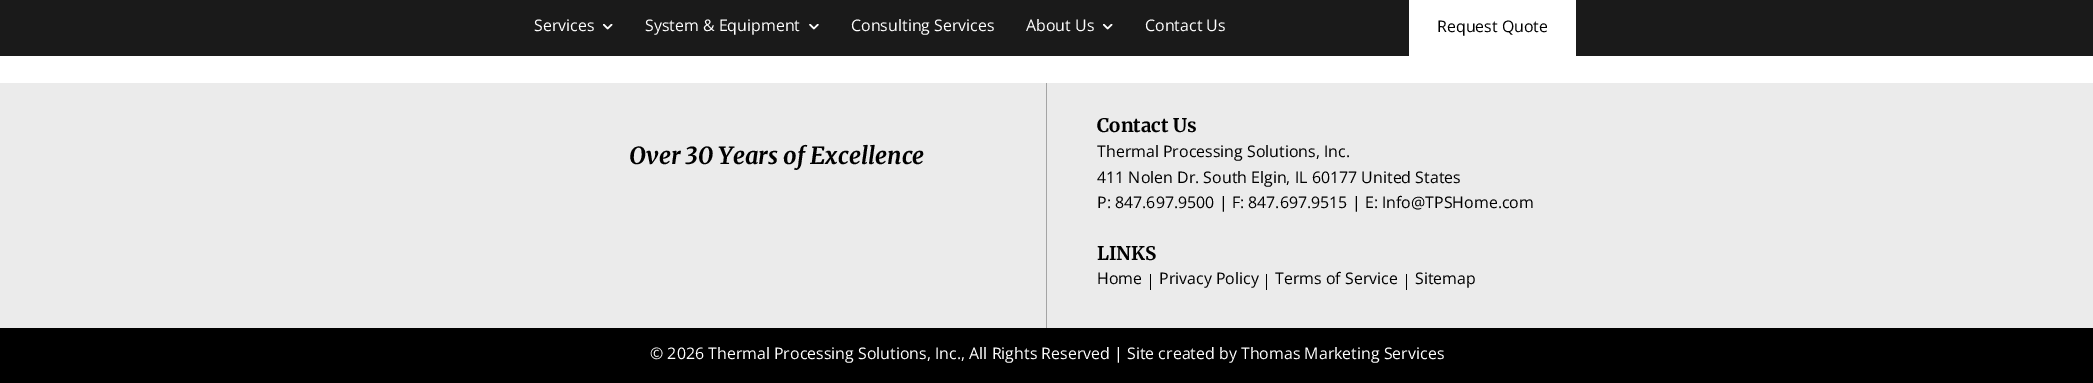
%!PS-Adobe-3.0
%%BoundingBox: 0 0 2093 383
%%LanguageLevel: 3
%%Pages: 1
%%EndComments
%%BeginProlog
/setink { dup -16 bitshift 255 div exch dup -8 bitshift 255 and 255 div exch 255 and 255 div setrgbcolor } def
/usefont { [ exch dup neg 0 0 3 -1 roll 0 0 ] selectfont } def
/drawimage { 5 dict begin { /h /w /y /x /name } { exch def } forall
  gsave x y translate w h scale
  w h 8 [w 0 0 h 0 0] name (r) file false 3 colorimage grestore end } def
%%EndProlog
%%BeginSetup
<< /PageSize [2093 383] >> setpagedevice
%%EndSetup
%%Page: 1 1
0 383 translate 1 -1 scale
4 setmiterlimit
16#FFFFFF setink
0 0 2093 383 rectfill
16#1A1A1A setink
0 0 2093 56 rectfill
/OpenSans-Regular 15.95 usefont
16#FFFFFF setink
534 31 moveto (Services) show
(img1.raw) 603 24 10 6 drawimage
645 31 moveto (System & Equipment) show
(img2.raw) 809 24 10 6 drawimage
851 31 moveto (Consulting Services) show
1026 31 moveto (About Us) show
(img1.raw) 1103 24 10 6 drawimage
1145 31 moveto (Contact Us) show
1409 0 167 56 rectfill
16#000000 setink
1437 32 moveto (Request Quote) show
16#EBEBEB setink
0 83 2093 245 rectfill
/Merriweather-BoldItalic 23.5 usefont
16#000000 setink
629 164 moveto (Over 30 Years of Excellence) show
16#A4A4A4 setink
1046 83 1 245 rectfill
/Merriweather-Bold 18.75 usefont
16#000000 setink
1097 132 moveto (Contact Us) show
/OpenSans-Regular 15.95 usefont
[
    [(Thermal Processing Solutions, Inc.) 1097 157]
    [(411 Nolen Dr. South Elgin, IL 60177 United States) 1097 183]
    [(P: 847.697.9500 | F: 847.697.9515 | E: Info@TPSHome.com) 1097 208]
] { aload pop moveto show } forall
/Merriweather-Bold 18.75 usefont
1097 260 moveto (LINKS) show
/OpenSans-Regular 15.95 usefont
1097 284 moveto (Home) show
1150 274 1 16 rectfill
1159 284 moveto (Privacy Policy) show
1266 274 1 16 rectfill
1275 284 moveto (Terms of Service) show
1406 274 1 16 rectfill
1415 284 moveto (Sitemap) show
0 328 2093 55 rectfill
16#FFFFFF setink
650 359 moveto (© 2026 Thermal Processing Solutions, Inc., All Rights Reserved | Site created by Thomas Marketing Services) show
showpage
%%EOF
